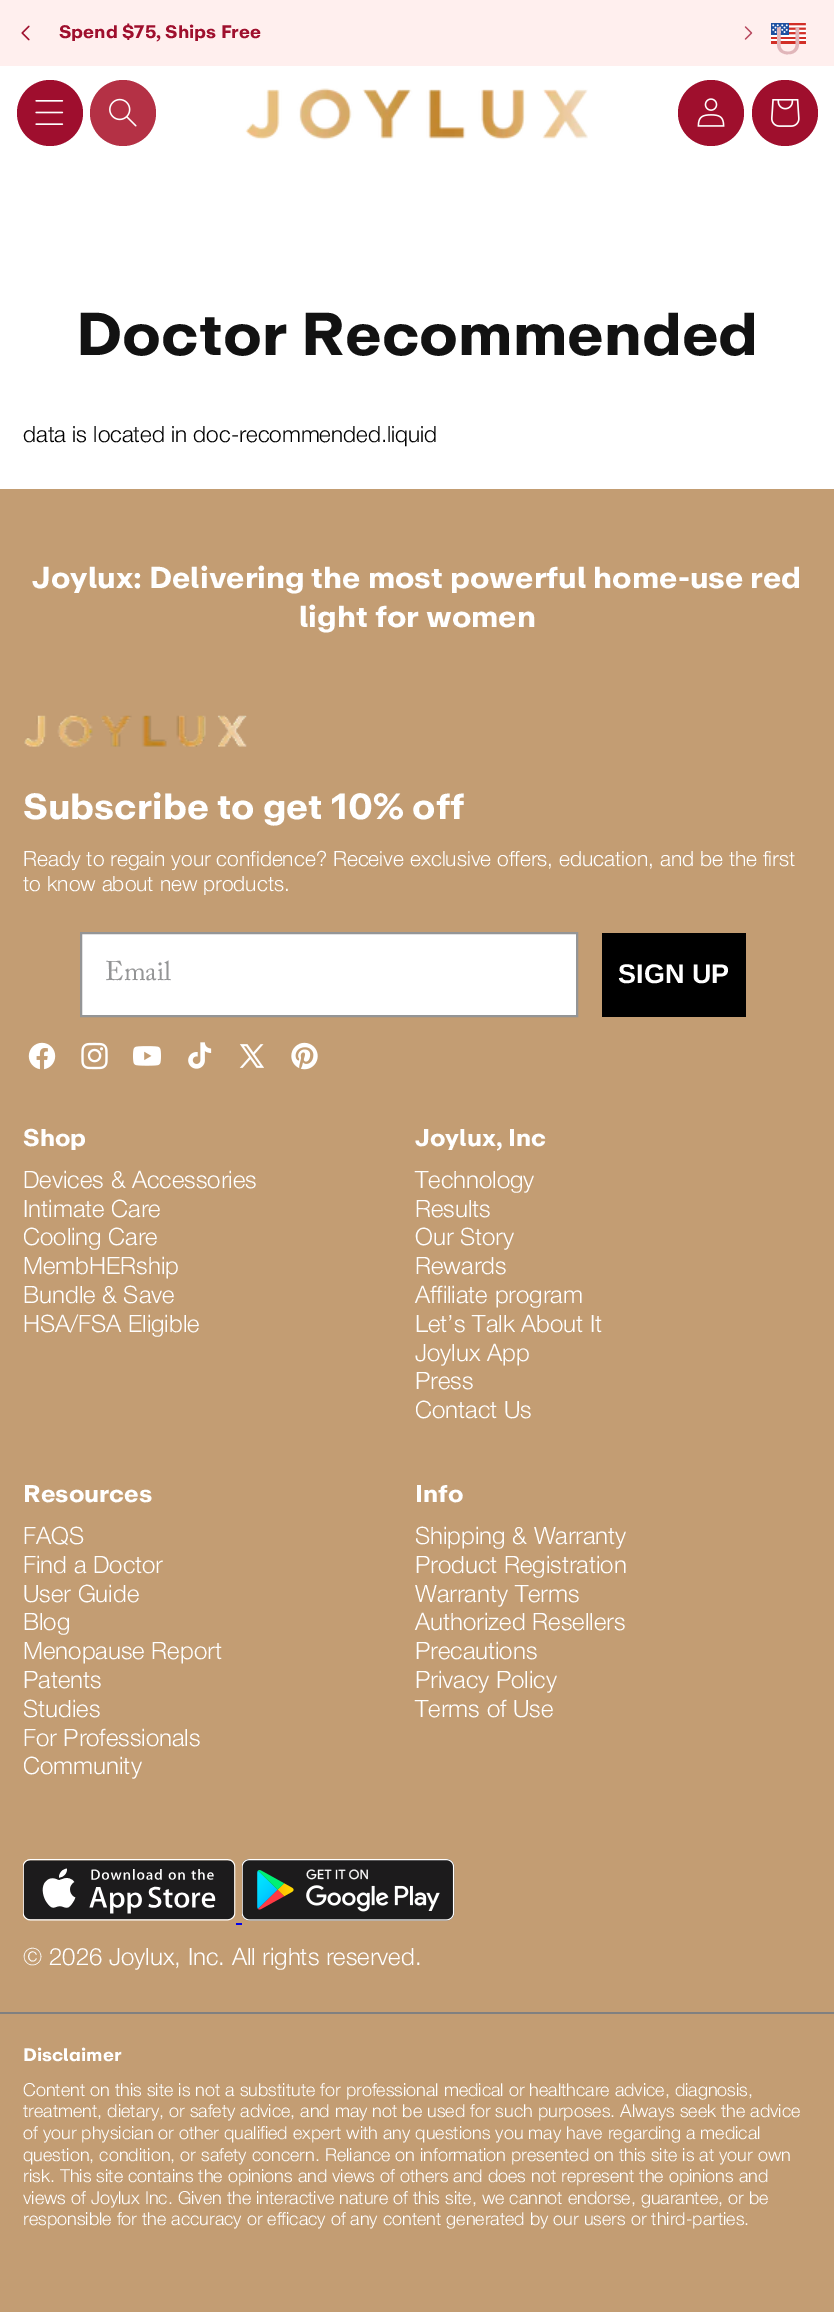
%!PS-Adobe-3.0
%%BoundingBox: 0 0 834 2312
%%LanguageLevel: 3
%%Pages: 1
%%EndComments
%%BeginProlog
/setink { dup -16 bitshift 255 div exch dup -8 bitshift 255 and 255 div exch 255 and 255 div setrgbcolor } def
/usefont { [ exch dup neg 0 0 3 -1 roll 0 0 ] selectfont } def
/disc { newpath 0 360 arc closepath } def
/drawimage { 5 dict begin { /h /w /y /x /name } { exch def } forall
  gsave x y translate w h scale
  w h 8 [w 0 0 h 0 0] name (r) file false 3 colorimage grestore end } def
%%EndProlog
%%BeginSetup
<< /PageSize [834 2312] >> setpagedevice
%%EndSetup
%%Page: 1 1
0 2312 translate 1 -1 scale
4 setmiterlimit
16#FFFFFF setink
0 0 834 2312 rectfill
16#FFEFEE setink
0 0 834 66 rectfill
(img1.raw) 21 25 9 16 drawimage
/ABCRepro-Bold 18 usefont
16#9F0F2D setink
59 38 moveto (Spend $75, Ships Free) show
(img2.raw) 744 26 9 14 drawimage
(img3.raw) 771 23 35 21 drawimage
/LiberationSans-Regular 39 usefont
16#E1B6BA setink
774 54 moveto (U) show
16#9F0E2E setink
50 113 33 disc fill
(img4.raw) 35 100 29 25 drawimage
16#B43145 setink
123 113 33 disc fill
(img5.raw) 109 98 28 29 drawimage
(img6.raw) 245 88 343 52 drawimage
16#9F0F2D setink
711 113 33 disc fill
(img7.raw) 697 98 28 29 drawimage
785 113 33 disc fill
(img8.raw) 771 99 29 28 drawimage
/ABCRepro-Bold 60 usefont
16#121212 setink
76 355 moveto (Doctor Recommended) show
/HelveticaNeue-Light 22.5 usefont
16#000000 setink
23 442 moveto (data is located in doc-recommended.liquid) show
16#C39D73 setink
0 489 834 1823 rectfill
/ABCRepro-Bold 30 usefont
16#FFFFFF setink
32 588 moveto (Joylux: Delivering the most powerful home-use red) show
299 627 moveto (light for women) show
(img9.raw) 24 714 223 34 drawimage
/ABCRepro-Bold 36 usefont
23 819 moveto (Subscribe to get 10% off) show
/HelveticaNeue-Light 21 usefont
23 866 moveto (Ready to regain your confidence? Receive exclusive offers, education, and be the first) show
23 891 moveto (to know about new products.) show
81 933 moveto 577 933 lineto 577 1016 lineto 81 1016 lineto closepath gsave fill grestore
16#949596 setink
2 setlinewidth
stroke
/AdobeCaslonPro-Regular 27 usefont
105 980 moveto (Email) show
16#000000 setink
602 933 144 84 rectfill
/LiberationSans-Bold 27 usefont
16#FFFFFF setink
618 983 moveto (SIGN UP) show
(img10.raw) 28 1042 28 28 drawimage
(img11.raw) 81 1042 27 28 drawimage
(img12.raw) 133 1046 28 20 drawimage
(img13.raw) 188 1042 24 27 drawimage
(img14.raw) 239 1044 25 24 drawimage
(img15.raw) 291 1042 27 28 drawimage
/ABCRepro-Bold 24 usefont
23 1146 moveto (Shop) show
/HelveticaNeue-Light 24 usefont
[
    [(Devices & Accessories) 23 1188]
    [(Intimate Care) 23 1217]
    [(Cooling Care) 23 1245]
    [(MembHERship) 23 1274]
    [(Bundle & Save) 23 1303]
    [(HSA/FSA Eligible) 23 1332]
] { aload pop moveto show } forall
/ABCRepro-Bold 24 usefont
415 1146 moveto (Joylux, Inc) show
/HelveticaNeue-Light 24 usefont
[
    [(Technology) 415 1188]
    [(Results) 415 1217]
    [(Our Story) 415 1245]
    [(Rewards) 415 1274]
    [(Affiliate program) 415 1303]
    [(Let’s Talk About It) 415 1332]
    [(Joylux App) 415 1361]
    [(Press) 415 1389]
    [(Contact Us) 415 1418]
] { aload pop moveto show } forall
/ABCRepro-Bold 24 usefont
23 1502 moveto (Resources) show
/HelveticaNeue-Light 24 usefont
[
    [(FAQS) 23 1544]
    [(Find a Doctor) 23 1573]
    [(User Guide) 23 1602]
    [(Blog) 23 1630]
    [(Menopause Report) 23 1659]
    [(Patents) 23 1688]
    [(Studies) 23 1717]
    [(For Professionals) 23 1746]
    [(Community) 23 1774]
] { aload pop moveto show } forall
/ABCRepro-Bold 24 usefont
415 1502 moveto (Info) show
/HelveticaNeue-Light 24 usefont
[
    [(Shipping & Warranty) 415 1544]
    [(Product Registration) 415 1573]
    [(Warranty Terms) 415 1602]
    [(Authorized Resellers) 415 1630]
    [(Precautions) 415 1659]
    [(Privacy Policy) 415 1688]
    [(Terms of Use) 415 1717]
] { aload pop moveto show } forall
(img16.raw) 23 1859 213 62 drawimage
(img17.raw) 242 1859 213 62 drawimage
16#0000EE setink
236 1923 6 2 rectfill
16#FFFFFF setink
23 1965 moveto (© 2026 Joylux, Inc. All rights reserved.) show
16#808080 setink
0 2012 834 2 rectfill
/ABCRepro-Bold 18 usefont
16#FFFFFF setink
23 2061 moveto (Disclaimer) show
/HelveticaNeue-Light 18 usefont
[
    [(Content on this site is not a substitute for professional medical or healthcare advice, diagnosis,) 23 2096]
    [(treatment, dietary, or safety advice, and may not be used for such purposes. Always seek the advice) 23 2117]
    [(of your physician or other qualified expert with any questions you may have regarding a medical) 23 2139]
    [(question, condition, or safety concern. Reliance on information presented on this site is at your own) 23 2161]
    [(risk. This site contains the opinions and views of others and does not represent the opinions and) 23 2182]
    [(views of Joylux Inc. Given the interactive nature of this site, we cannot endorse, guarantee, or be) 23 2204]
    [(responsible for the accuracy or efficacy of any content generated by our users or third-parties.) 23 2225]
] { aload pop moveto show } forall
showpage
%%EOF
